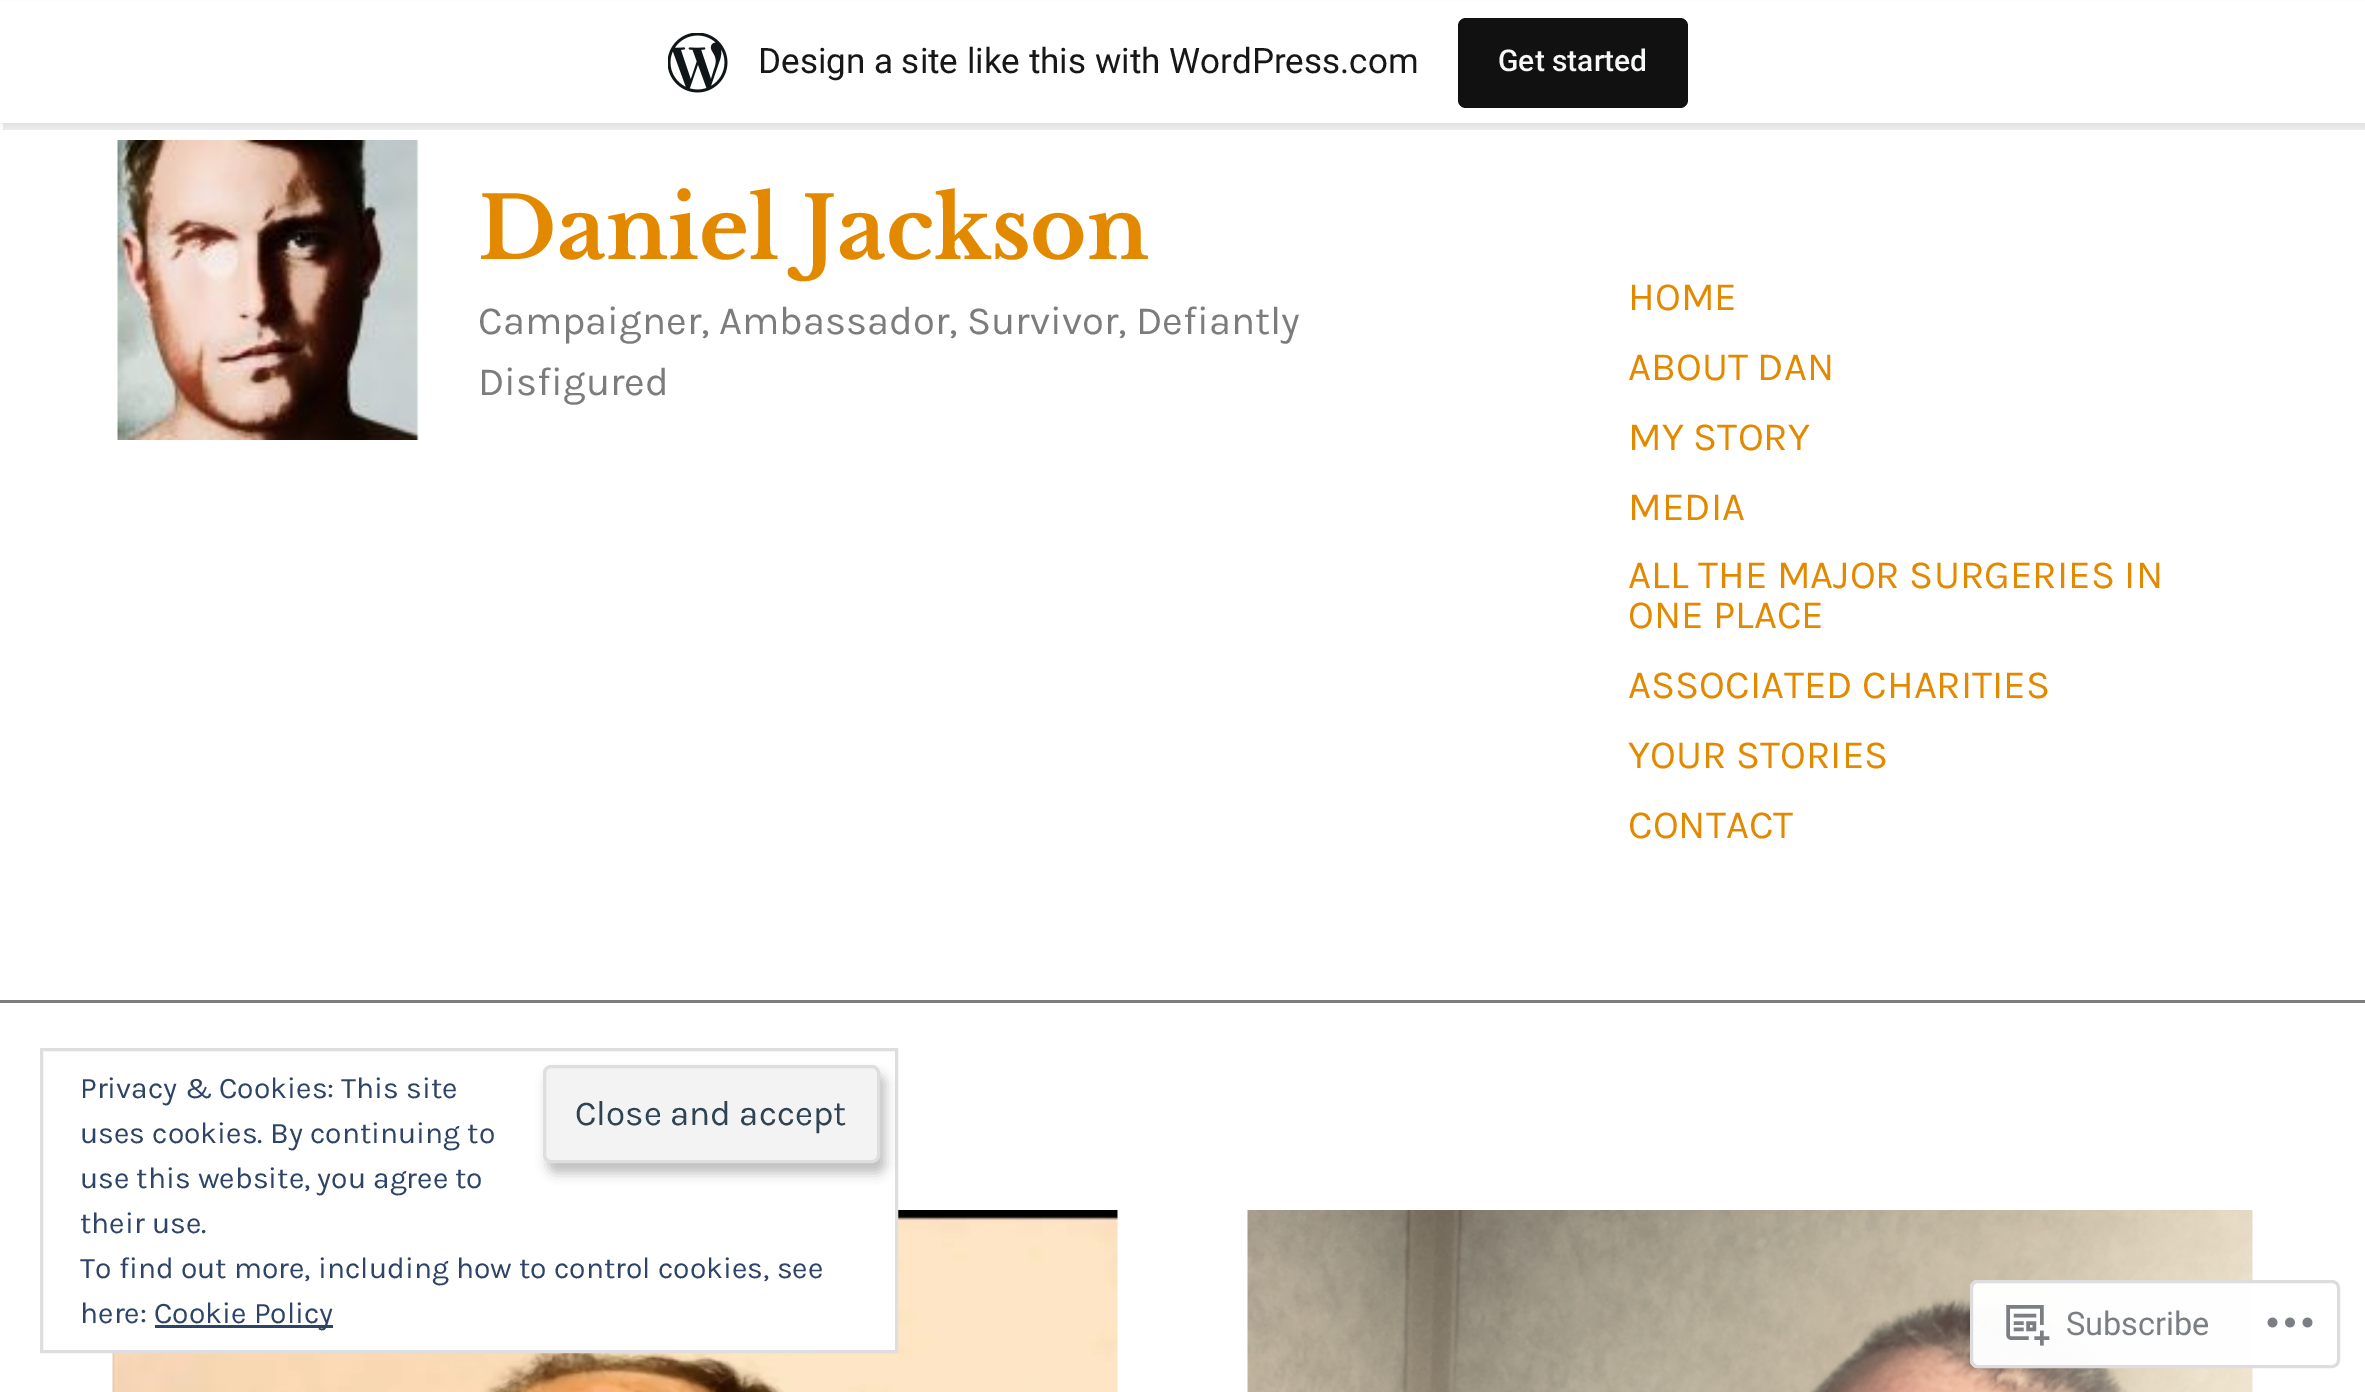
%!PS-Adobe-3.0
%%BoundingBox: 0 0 2365 1392
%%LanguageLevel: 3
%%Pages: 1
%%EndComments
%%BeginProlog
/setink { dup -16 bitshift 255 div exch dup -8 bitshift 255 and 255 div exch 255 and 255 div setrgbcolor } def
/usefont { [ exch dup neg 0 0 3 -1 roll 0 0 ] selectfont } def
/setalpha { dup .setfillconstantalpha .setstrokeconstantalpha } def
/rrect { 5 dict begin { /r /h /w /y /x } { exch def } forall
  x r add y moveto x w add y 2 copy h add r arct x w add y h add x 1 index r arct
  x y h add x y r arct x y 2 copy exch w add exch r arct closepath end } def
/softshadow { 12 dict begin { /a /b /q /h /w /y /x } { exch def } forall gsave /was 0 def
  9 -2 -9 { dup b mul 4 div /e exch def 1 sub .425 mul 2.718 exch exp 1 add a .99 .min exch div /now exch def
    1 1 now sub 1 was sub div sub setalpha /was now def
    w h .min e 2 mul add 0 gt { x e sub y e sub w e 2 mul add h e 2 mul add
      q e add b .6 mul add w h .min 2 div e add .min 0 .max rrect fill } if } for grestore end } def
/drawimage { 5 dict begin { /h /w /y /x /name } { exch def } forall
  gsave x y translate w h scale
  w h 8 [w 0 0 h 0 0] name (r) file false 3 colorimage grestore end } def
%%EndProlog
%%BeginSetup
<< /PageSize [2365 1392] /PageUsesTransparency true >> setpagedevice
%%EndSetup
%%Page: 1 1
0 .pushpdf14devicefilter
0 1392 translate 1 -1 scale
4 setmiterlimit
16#FFFFFF setink
0 0 2365 1392 rectfill
16#000000 setink
0 3 2365 122 0 2.5 0.05 softshadow
0.08 setalpha
3 122 moveto 3 130 lineto 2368 130 lineto 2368 8 lineto 2365 8 lineto 2365 122 lineto closepath fill
1 setalpha
16#FFFFFF setink
0 1 2365 122 rectfill
(img1.raw) 668 33 60 60 drawimage
/Roboto-Regular 35 usefont
16#171717 setink
758 73 moveto (Design a site like this with WordPress.com) show
16#111111 setink
1458 18 230 90 8 rrect fill
/Roboto-Medium 30 usefont
16#F6F7F7 setink
1498 71 moveto (Get started) show
(img2.raw) 117 140 302 300 drawimage
/LibreBaskerville-Bold 85.5 usefont
16#E38900 setink
478 259 moveto (Daniel Jackson) show
/Karla-Regular 40 usefont
16#7C7C7C setink
478 334 moveto (Campaigner, Ambassador, Survivor, Defiantly) show
478 395 moveto (Disfigured) show
16#E38900 setink
[
    [(HOME) 1628 310]
    [(ABOUT DAN) 1628 380]
    [(MY STORY) 1628 450]
    [(MEDIA) 1628 520]
    [(ALL THE MAJOR SURGERIES IN) 1628 588]
    [(ONE PLACE) 1628 628]
    [(ASSOCIATED CHARITIES) 1628 698]
    [(YOUR STORIES) 1628 768]
    [(CONTACT) 1628 838]
] { aload pop moveto show } forall
16#7C7C7C setink
0 1000 2365 3 rectfill
(img3.raw) 112 1210 1006 182 drawimage
(img4.raw) 1247 1210 1006 182 drawimage
16#FFFFFF setink
112 1210 783 140 rectfill
16#DEDEDE setink
3 setlinewidth
41.5 1049.5 855 302 rectstroke
/Karla-Regular 30 usefont
16#2E4467 setink
80 1098 moveto (Privacy & Cookies: This site) show
80 1143 moveto (uses cookies. By continuing to) show
16#000000 setink
548 1075 337 98 8 6 0.25 softshadow
16#F3F3F3 setink
544.5 1066.5 334 95 6.5 rrect gsave fill grestore
16#DEDEDE setink
stroke
/Karla-Regular 35 usefont
16#2E4453 setink
575 1125 moveto (Close and accept) show
/Karla-Regular 30 usefont
16#2E4467 setink
[
    [(use this website, you agree to) 80 1188]
    [(their use.) 80 1233]
    [(To find out more, including how to control cookies, see) 80 1278]
    [(here:) 80 1323]
] { aload pop moveto show } forall
155 1325 178 3 rectfill
154 1323 moveto (Cookie Policy) show
0.98 setalpha
16#FFFFFF setink
1970 1280 370 88 8 rrect fill
16#DCDCDE setink
1971.5 1281.5 367 85 6.5 rrect stroke
1 setalpha
(img5.raw) 2006 1305 44 41 drawimage
/Roboto-Regular 32.5 usefont
16#7B7F84 setink
2066 1335 moveto (Subscribe) show
(img6.raw) 2267 1317 46 11 drawimage
.poppdf14devicefilter showpage
%%EOF
